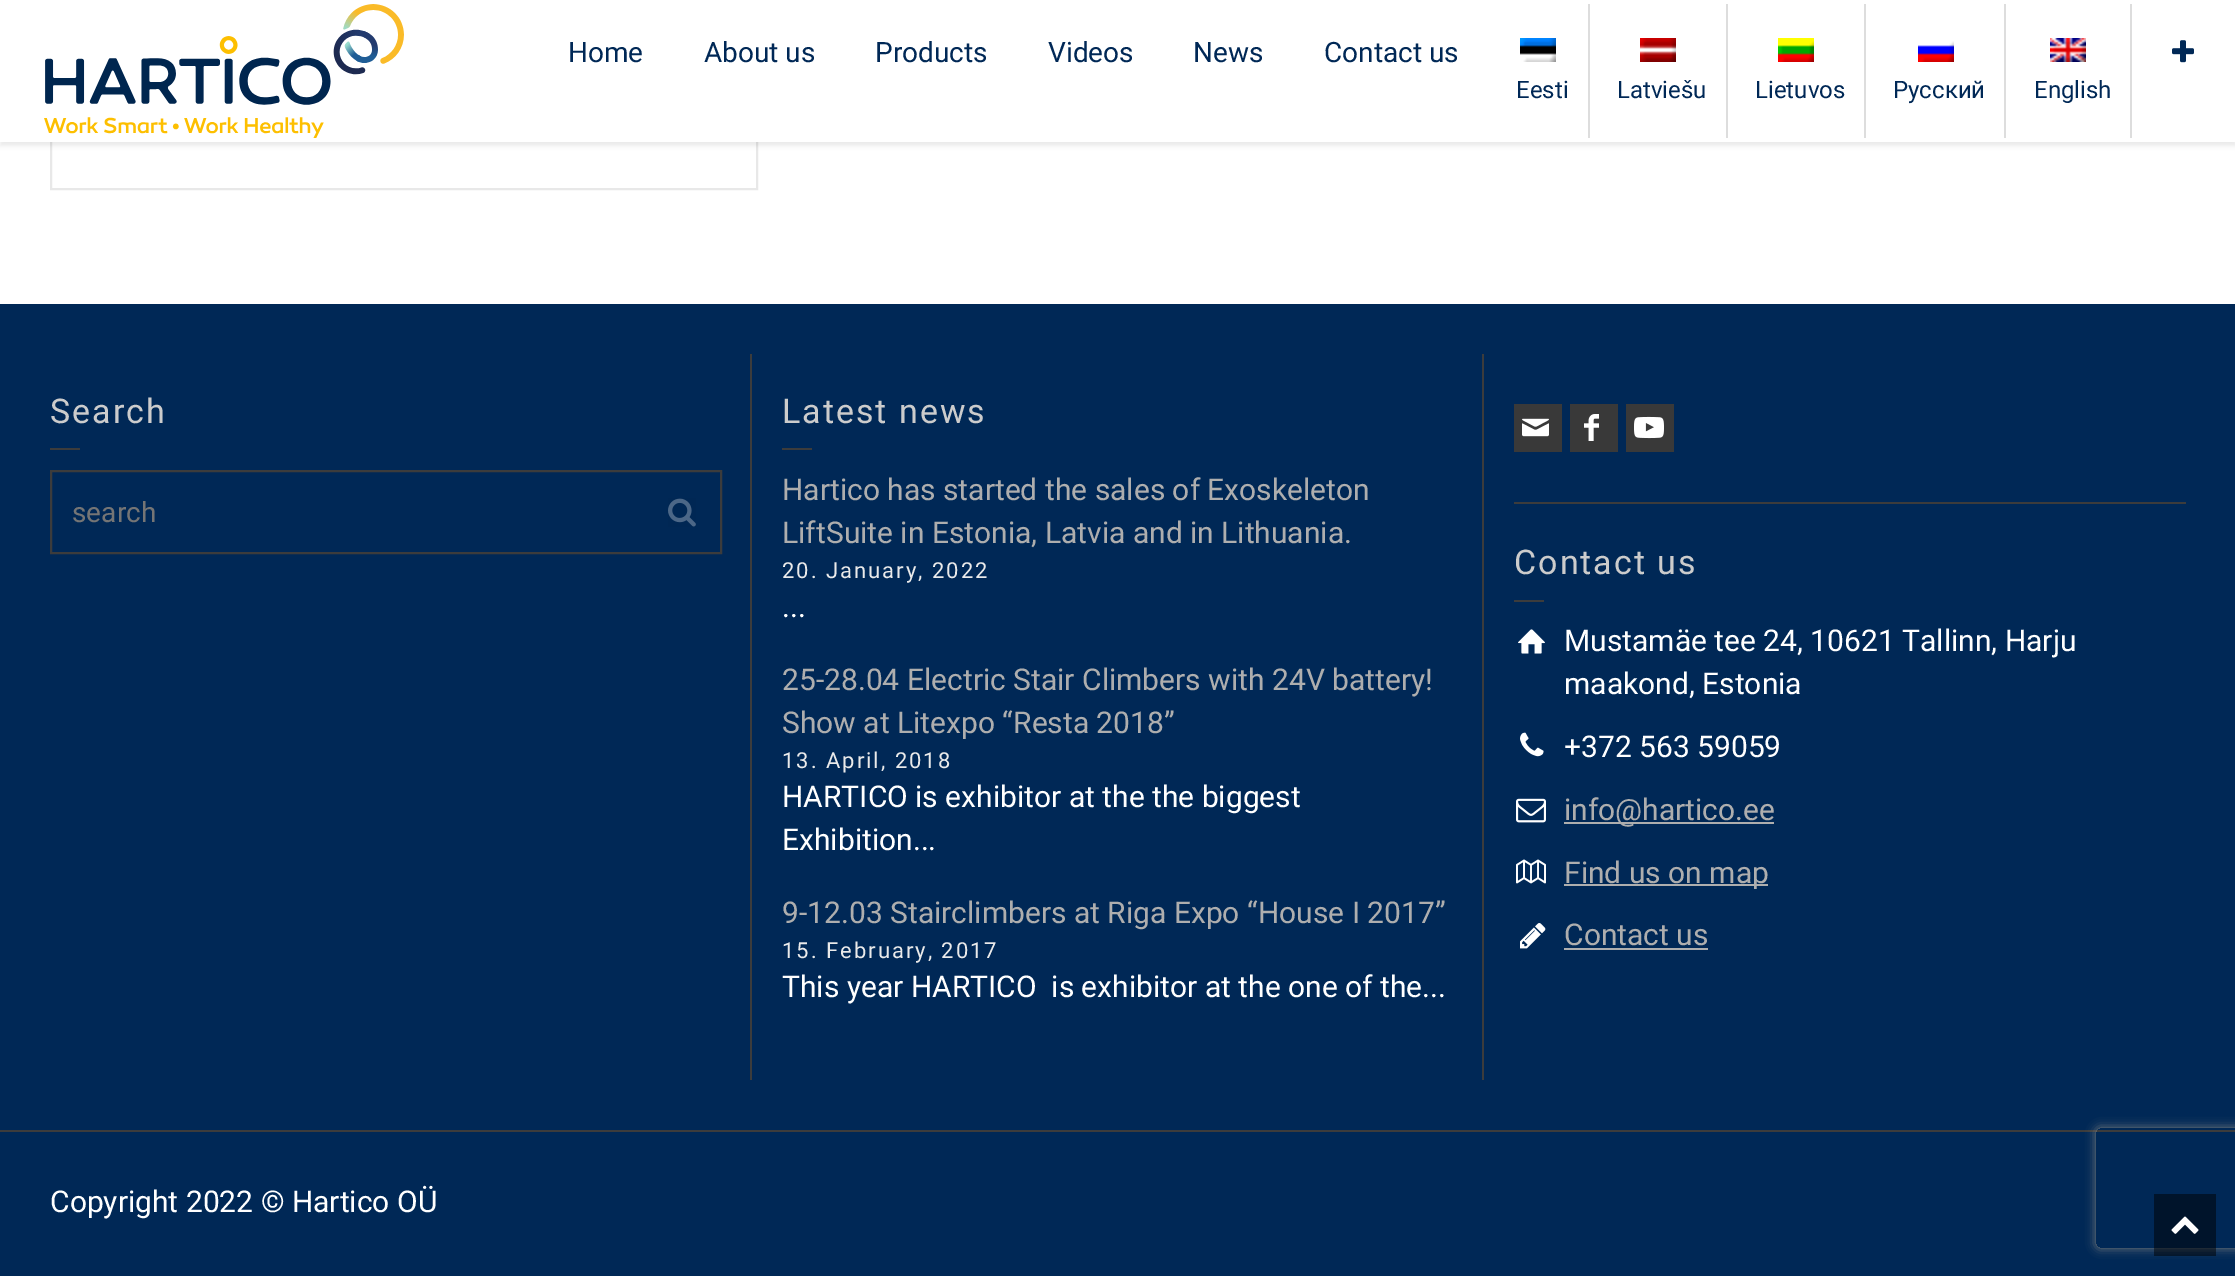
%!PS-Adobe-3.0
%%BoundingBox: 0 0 2235 1276
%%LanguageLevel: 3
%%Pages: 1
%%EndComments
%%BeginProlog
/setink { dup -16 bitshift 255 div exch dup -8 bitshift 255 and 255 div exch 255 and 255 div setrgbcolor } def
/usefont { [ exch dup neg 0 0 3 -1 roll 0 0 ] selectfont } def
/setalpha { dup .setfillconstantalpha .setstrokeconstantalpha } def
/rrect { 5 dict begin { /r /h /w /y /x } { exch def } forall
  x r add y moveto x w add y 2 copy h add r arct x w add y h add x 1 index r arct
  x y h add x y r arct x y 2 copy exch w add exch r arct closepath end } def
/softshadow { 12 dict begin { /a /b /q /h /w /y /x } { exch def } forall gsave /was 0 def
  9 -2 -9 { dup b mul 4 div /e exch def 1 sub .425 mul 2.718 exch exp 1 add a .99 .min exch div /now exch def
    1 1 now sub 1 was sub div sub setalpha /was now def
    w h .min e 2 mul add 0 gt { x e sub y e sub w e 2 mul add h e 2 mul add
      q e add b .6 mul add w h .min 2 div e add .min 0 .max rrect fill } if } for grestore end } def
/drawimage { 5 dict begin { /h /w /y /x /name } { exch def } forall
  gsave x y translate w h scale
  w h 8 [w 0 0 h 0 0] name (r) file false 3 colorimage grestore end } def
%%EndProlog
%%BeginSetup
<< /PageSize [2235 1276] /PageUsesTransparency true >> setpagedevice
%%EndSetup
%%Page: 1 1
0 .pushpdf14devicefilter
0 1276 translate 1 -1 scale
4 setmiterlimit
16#002856 setink
0 0 2235 1276 rectfill
16#FFFFFF setink
0 142 2235 162 rectfill
16#E8E8E8 setink
2 setlinewidth
51 -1 706 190 rectstroke
16#000000 setink
0 4 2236 142 0 2 0.07 softshadow
16#FFFFFF setink
0 0 2235 142 rectfill
(img1.raw) 44 4 360 134 drawimage
/Roboto-Regular 28 usefont
16#002856 setink
[
    [(Home) 568 62]
    [(About us) 704 62]
    [(Products) 875 62]
    [(Videos) 1048 62]
    [(News) 1193 62]
    [(Contact us) 1324 62]
] { aload pop moveto show } forall
16#DDDDDD setink
1588 4 2 134 rectfill
(img2.raw) 1520 38 36 24 drawimage
/Roboto-Regular 24 usefont
16#002856 setink
1516 98 moveto (Eesti) show
16#DDDDDD setink
1726 4 2 134 rectfill
(img3.raw) 1640 38 36 24 drawimage
16#002856 setink
1617 98 moveto (Latviešu) show
16#DDDDDD setink
1864 4 2 134 rectfill
(img4.raw) 1778 38 36 24 drawimage
16#002856 setink
1755 98 moveto (Lietuvos) show
16#DDDDDD setink
2004 4 2 134 rectfill
(img5.raw) 1918 41 36 21 drawimage
16#002856 setink
1893 98 moveto (Русский) show
16#DDDDDD setink
2130 4 2 134 rectfill
(img6.raw) 2050 38 36 24 drawimage
16#002856 setink
2034 98 moveto (English) show
(img7.raw) 2172 40 22 23 drawimage
/Roboto-Regular 34 usefont
16#CCCCCC setink
50 423 moveto 2 0 (Search) ashow
16#3C3C3C setink
50 448 30 2 rectfill
51 471 670 82 rectstroke
/Roboto-Regular 28 usefont
16#757575 setink
72 522 moveto (search) show
(img8.raw) 668 498 28 29 drawimage
16#3C3C3C setink
750 354 2 726 rectfill
/Roboto-Regular 34 usefont
16#CCCCCC setink
782 423 moveto 2 0 (Latest news) ashow
16#3C3C3C setink
782 448 30 2 rectfill
/Roboto-Regular 30 usefont
16#AEAEAE setink
782 500 moveto (Hartico has started the sales of Exoskeleton) show
782 543 moveto (LiftSuite in Estonia, Latvia and in Lithuania.) show
/Roboto-Regular 22 usefont
16#EAEAEA setink
782 578 moveto 2 0 (20. January, 2022) ashow
/Roboto-Regular 30 usefont
16#FFFFFF setink
782 617 moveto (...) show
16#AEAEAE setink
782 690 moveto (25-28.04 Electric Stair Climbers with 24V battery!) show
782 733 moveto (Show at Litexpo “Resta 2018”) show
/Roboto-Regular 22 usefont
16#EAEAEA setink
782 768 moveto 2 0 (13. April, 2018) ashow
/Roboto-Regular 30 usefont
16#FFFFFF setink
782 807 moveto (HARTICO is exhibitor at the the biggest) show
782 850 moveto (Exhibition...) show
16#AEAEAE setink
782 923 moveto (9-12.03 Stairclimbers at Riga Expo “House I 2017”) show
/Roboto-Regular 22 usefont
16#EAEAEA setink
782 958 moveto 2 0 (15. February, 2017) ashow
/Roboto-Regular 30 usefont
16#FFFFFF setink
782 997 moveto (This year HARTICO  is exhibitor at the one of the...) show
16#3C3C3C setink
1482 354 2 726 rectfill
16#393939 setink
1514 404 48 48 rectfill
(img9.raw) 1522 418 27 19 drawimage
1570 404 48 48 rectfill
(img10.raw) 1584 414 15 27 drawimage
1626 404 48 48 rectfill
(img11.raw) 1634 416 30 23 drawimage
16#3C3C3C setink
1514 502 672 2 rectfill
/Roboto-Regular 34 usefont
16#CCCCCC setink
1514 574 moveto 2 0 (Contact us) ashow
16#3C3C3C setink
1514 600 30 2 rectfill
(img12.raw) 1518 629 27 25 drawimage
/Roboto-Regular 30 usefont
16#FFFFFF setink
1564 651 moveto (Mustamäe tee 24, 10621 Tallinn, Harju) show
1564 694 moveto (maakond, Estonia) show
(img13.raw) 1520 732 24 25 drawimage
1564 757 moveto (+372 563 59059) show
(img14.raw) 1516 798 30 25 drawimage
16#AEAEAE setink
1564 822 210 2 rectfill
1564 820 moveto (info@hartico.ee) show
(img15.raw) 1516 859 30 25 drawimage
1564 884 204 2 rectfill
1564 883 moveto (Find us on map) show
(img16.raw) 1520 923 26 26 drawimage
1564 945 moveto (Contact us) show
1564 948 144 2 rectfill
16#3C3C3C setink
0 1130 2235 2 rectfill
16#FFFFFF setink
50 1212 moveto (Copyright 2022 © Hartico OÜ) show
gsave
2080 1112 moveto 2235 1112 lineto 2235 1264 lineto 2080 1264 lineto closepath 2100 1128 moveto 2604 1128 lineto 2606 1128 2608 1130 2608 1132 curveto 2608 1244 lineto 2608 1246 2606 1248 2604 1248 curveto 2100 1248 lineto 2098 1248 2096 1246 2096 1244 curveto 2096 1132 lineto 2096 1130 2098 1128 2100 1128 curveto closepath eoclip newpath
16#808080 setink
2096 1128 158 120 4 5 1 softshadow
grestore
0.5 setalpha
16#000000 setink
2154 1194 62 62 rectfill
1 setalpha
(img17.raw) 2171 1216 28 18 drawimage
.poppdf14devicefilter showpage
%%EOF
